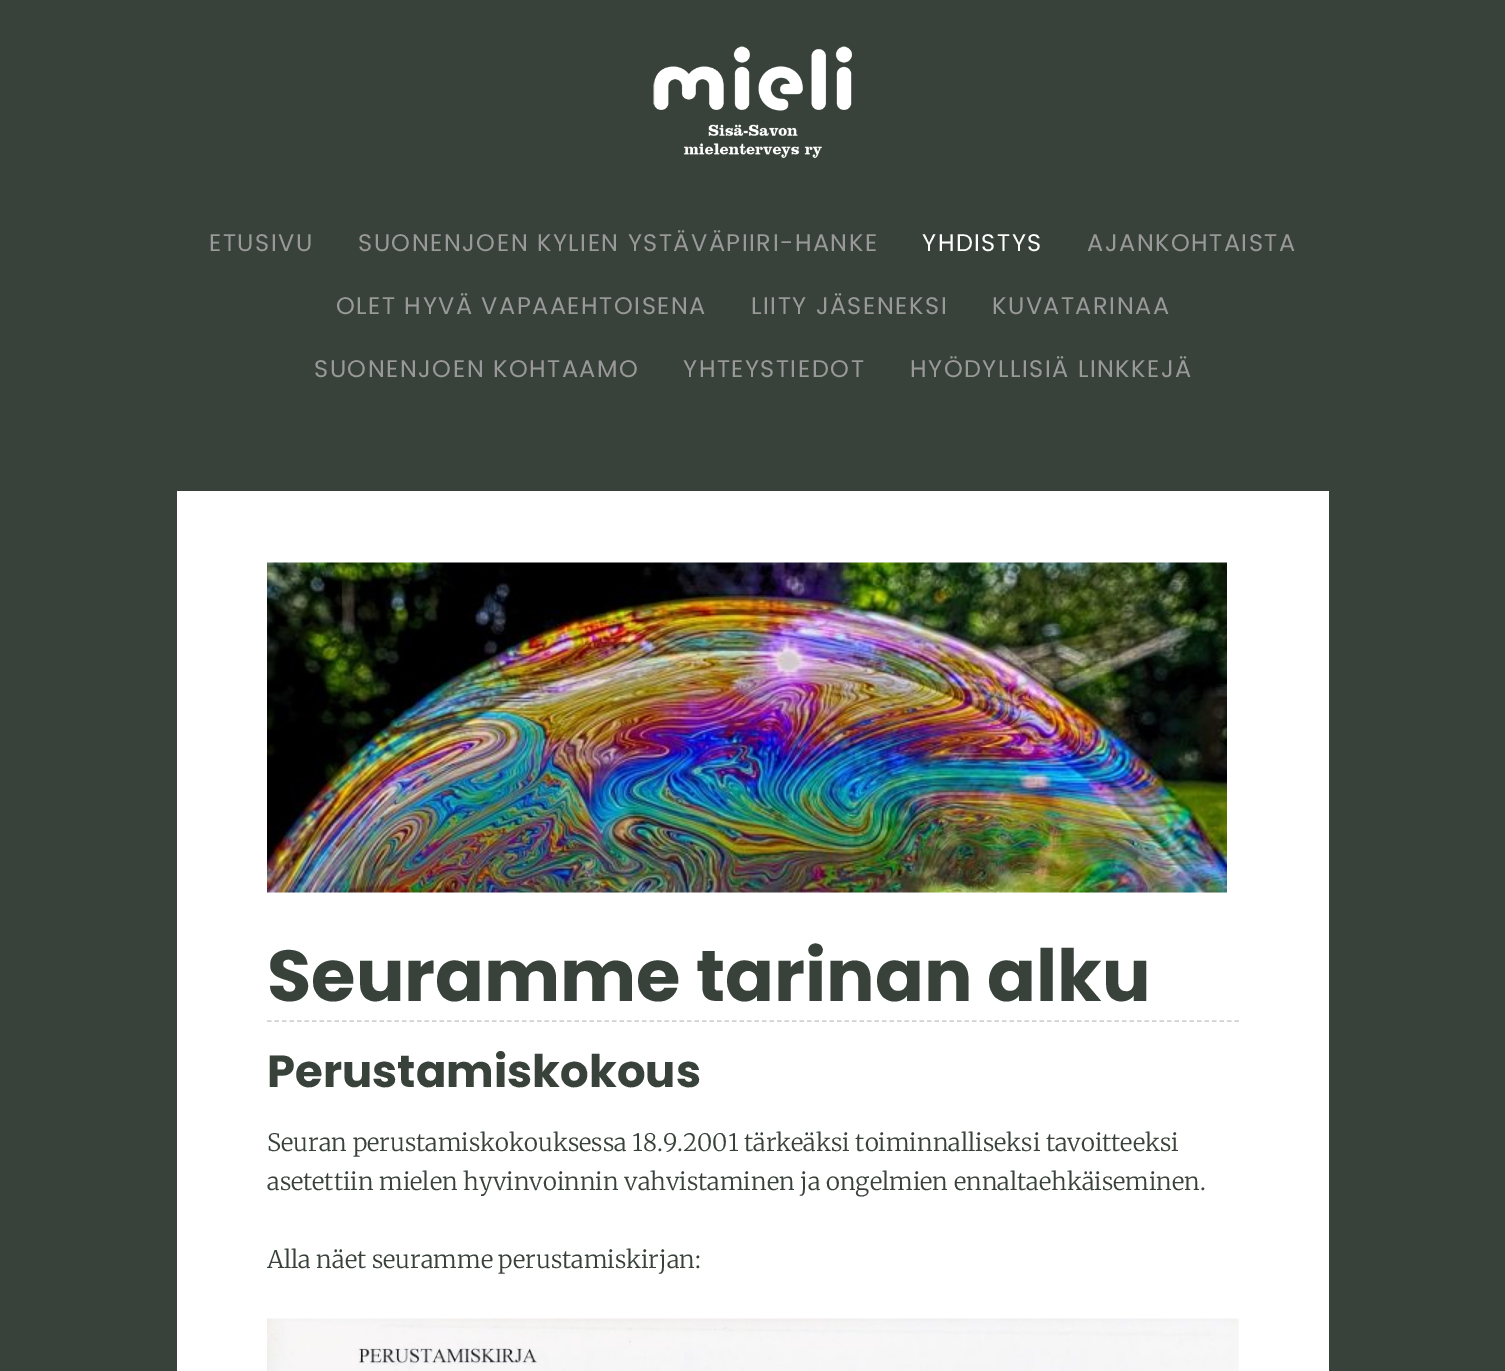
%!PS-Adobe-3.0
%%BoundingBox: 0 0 1505 1371
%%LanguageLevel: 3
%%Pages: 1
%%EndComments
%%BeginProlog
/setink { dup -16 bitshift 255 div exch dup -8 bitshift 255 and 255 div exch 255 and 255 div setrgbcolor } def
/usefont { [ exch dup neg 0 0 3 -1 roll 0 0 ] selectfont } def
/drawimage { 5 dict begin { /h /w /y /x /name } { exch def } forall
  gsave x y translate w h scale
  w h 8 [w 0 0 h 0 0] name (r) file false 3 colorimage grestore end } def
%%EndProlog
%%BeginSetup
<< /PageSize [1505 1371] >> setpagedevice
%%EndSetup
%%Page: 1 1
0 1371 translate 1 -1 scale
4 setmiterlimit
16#38413A setink
0 0 1505 1371 rectfill
(img1.raw) 653 46 199 112 drawimage
/Poppins-Regular 24 usefont
16#999999 setink
209 251 moveto 1.5 0 (ETUSIVU) ashow
358 251 moveto 1.5 0 (SUONENJOEN KYLIEN YSTÄVÄPIIRI-HANKE) ashow
16#FFFFFF setink
922 251 moveto 1.5 0 (YHDISTYS) ashow
16#999999 setink
1087 251 moveto 1.5 0 (AJANKOHTAISTA) ashow
336 314 moveto 1.5 0 (OLET HYVÄ VAPAAEHTOISENA) ashow
751 314 moveto 1.5 0 (LIITY JÄSENEKSI) ashow
992 314 moveto 1.5 0 (KUVATARINAA) ashow
314 377 moveto 1.5 0 (SUONENJOEN KOHTAAMO) ashow
683 377 moveto 1.5 0 (YHTEYSTIEDOT) ashow
910 377 moveto 1.5 0 (HYÖDYLLISIÄ LINKKEJÄ) ashow
16#FFFFFF setink
177 491 1152 880 rectfill
(img2.raw) 267 562 960 331 drawimage
16#D2D2D2 setink
1.5 setlinewidth
[4.5 3] 0 setdash
267 1021 moveto 1239 1021 lineto stroke
/Poppins-Bold 72 usefont
16#38413A setink
267 1001 moveto (Seuramme tarinan alku) show
/Poppins-Bold 45 usefont
267 1087 moveto (Perustamiskokous) show
/Merriweather-Light 24 usefont
[
    [(Seuran perustamiskokouksessa 18.9.2001 tärkeäksi toiminnalliseksi tavoitteeksi) 267 1151]
    [(asetettiin mielen hyvinvoinnin vahvistaminen ja ongelmien ennaltaehkäiseminen.) 267 1190]
    [(Alla näet seuramme perustamiskirjan:) 267 1268]
] { aload pop moveto show } forall
(img3.raw) 267 1318 972 53 drawimage
showpage
%%EOF
